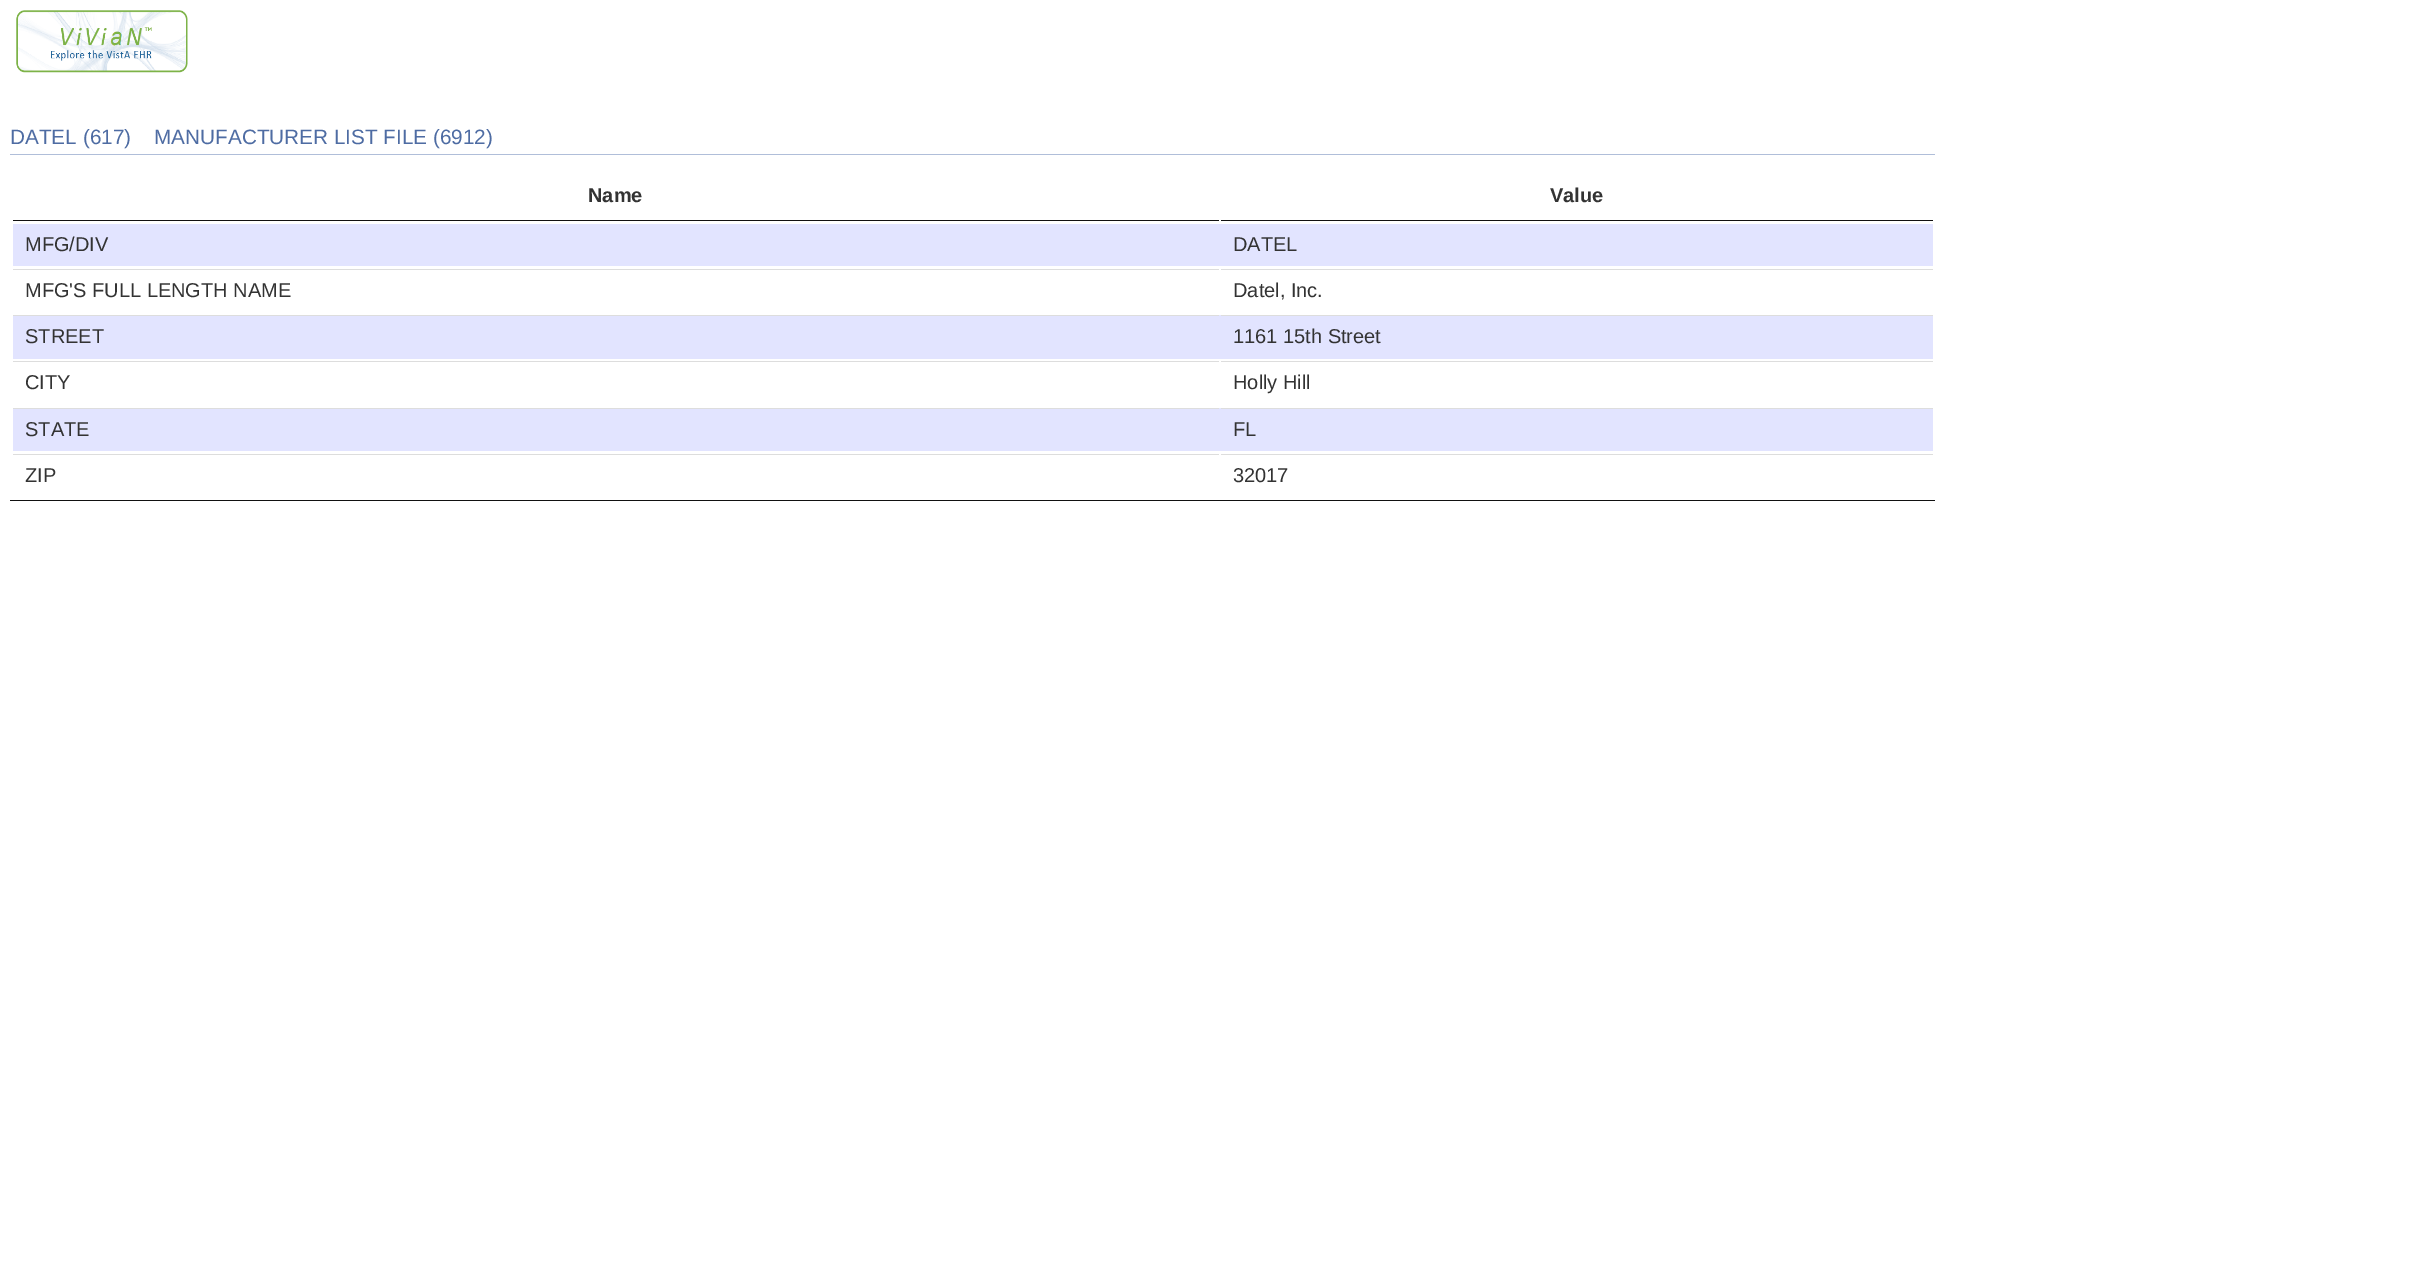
%!PS-Adobe-3.0
%%BoundingBox: 0 0 2426 1283
%%LanguageLevel: 3
%%Pages: 1
%%EndComments
%%BeginProlog
/setink { dup -16 bitshift 255 div exch dup -8 bitshift 255 and 255 div exch 255 and 255 div setrgbcolor } def
/usefont { [ exch dup neg 0 0 3 -1 roll 0 0 ] selectfont } def
/drawimage { 5 dict begin { /h /w /y /x /name } { exch def } forall
  gsave x y translate w h scale
  w h 8 [w 0 0 h 0 0] name (r) file false 3 colorimage grestore end } def
%%EndProlog
%%BeginSetup
<< /PageSize [2426 1283] >> setpagedevice
%%EndSetup
%%Page: 1 1
0 1283 translate 1 -1 scale
4 setmiterlimit
16#FFFFFF setink
0 0 2426 1283 rectfill
(img1.raw) 16 10 172 63 drawimage
16#B0BED9 setink
10 154 1925 1 rectfill
/LiberationSans-Regular 20.75 usefont
16#4E6CA3 setink
10 144 moveto (DATEL \(617\)) show
154 144 moveto (MANUFACTURER LIST FILE \(6912\)) show
16#111111 setink
10 500 1925 1 rectfill
13 220 1206 1 rectfill
/LiberationSans-Bold 20 usefont
16#333333 setink
588 202 moveto (Name) show
16#111111 setink
1221 220 712 1 rectfill
16#333333 setink
1550 202 moveto (Value) show
16#E2E4FF setink
13 224 1920 42 rectfill
/LiberationSans-Regular 20 usefont
16#333333 setink
25 251 moveto (MFG/DIV) show
1233 251 moveto (DATEL) show
16#DDDDDD setink
13 269 1206 1 rectfill
16#333333 setink
25 297 moveto (MFG'S FULL LENGTH NAME) show
16#DDDDDD setink
1221 269 712 1 rectfill
16#333333 setink
1233 297 moveto (Datel, Inc.) show
16#E2E4FF setink
13 315 1920 44 rectfill
16#DDDDDD setink
13 315 1206 1 rectfill
16#333333 setink
25 343 moveto (STREET) show
16#DDDDDD setink
1221 315 712 1 rectfill
16#333333 setink
1233 343 moveto (1161 15th Street) show
16#DDDDDD setink
13 361 1206 1 rectfill
16#333333 setink
25 389 moveto (CITY) show
16#DDDDDD setink
1221 361 712 1 rectfill
16#333333 setink
1233 389 moveto (Holly Hill) show
16#E2E4FF setink
13 408 1920 43 rectfill
16#DDDDDD setink
13 408 1206 1 rectfill
16#333333 setink
25 436 moveto (STATE) show
16#DDDDDD setink
1221 408 712 1 rectfill
16#333333 setink
1233 436 moveto (FL) show
16#DDDDDD setink
13 454 1206 1 rectfill
16#333333 setink
25 482 moveto (ZIP) show
16#DDDDDD setink
1221 454 712 1 rectfill
16#333333 setink
1233 482 moveto (32017) show
showpage
%%EOF
